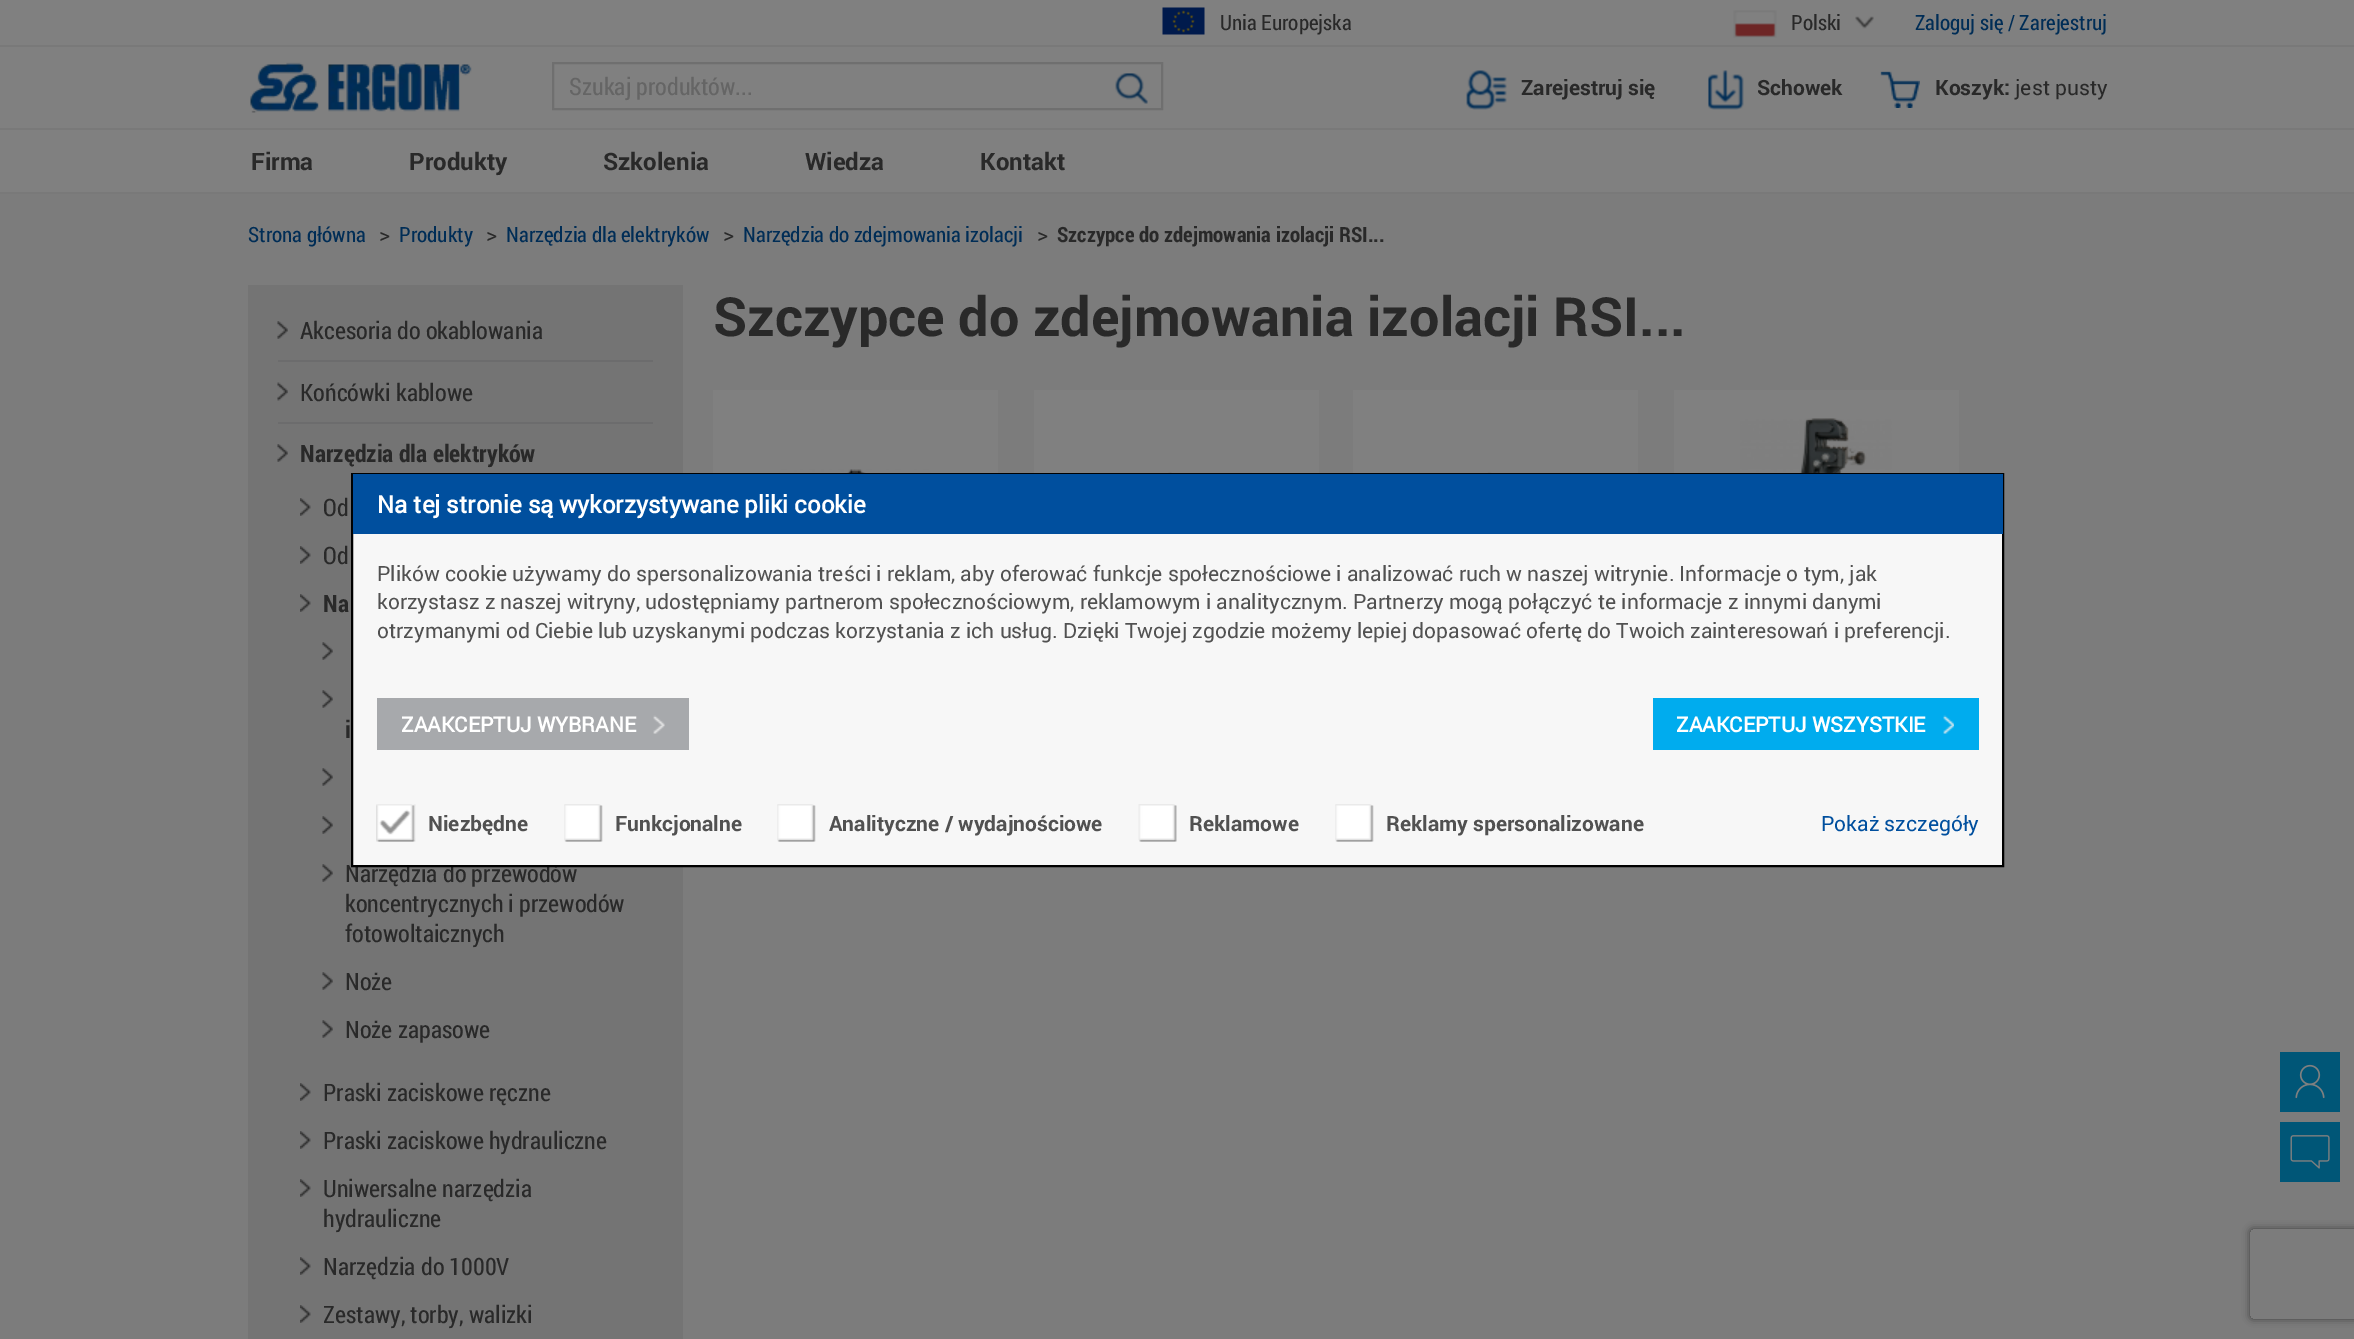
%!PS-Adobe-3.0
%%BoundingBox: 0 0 2354 1339
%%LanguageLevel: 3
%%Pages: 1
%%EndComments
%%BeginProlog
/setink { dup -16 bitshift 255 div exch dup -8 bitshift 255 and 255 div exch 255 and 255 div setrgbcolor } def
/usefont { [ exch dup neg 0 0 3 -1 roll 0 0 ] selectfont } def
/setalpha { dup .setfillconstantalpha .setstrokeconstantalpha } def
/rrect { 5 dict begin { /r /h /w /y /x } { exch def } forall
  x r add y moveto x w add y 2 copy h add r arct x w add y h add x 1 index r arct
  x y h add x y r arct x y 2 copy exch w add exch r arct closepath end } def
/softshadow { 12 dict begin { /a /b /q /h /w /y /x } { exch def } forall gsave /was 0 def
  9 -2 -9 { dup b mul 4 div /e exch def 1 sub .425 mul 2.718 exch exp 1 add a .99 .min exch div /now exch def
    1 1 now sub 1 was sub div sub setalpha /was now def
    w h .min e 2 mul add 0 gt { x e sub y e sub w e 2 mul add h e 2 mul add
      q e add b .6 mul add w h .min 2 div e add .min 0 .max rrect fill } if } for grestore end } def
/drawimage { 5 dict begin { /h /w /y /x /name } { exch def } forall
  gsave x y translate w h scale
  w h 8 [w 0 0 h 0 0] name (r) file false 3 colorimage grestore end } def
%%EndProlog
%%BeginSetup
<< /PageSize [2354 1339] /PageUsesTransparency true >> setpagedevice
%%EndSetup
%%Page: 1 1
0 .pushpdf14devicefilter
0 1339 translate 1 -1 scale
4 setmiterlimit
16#7C7C7C setink
0 0 2354 1339 rectfill
16#808080 setink
0 0 2354 192 rectfill
16#797979 setink
0 192 2354 2 rectfill
(img1.raw) 1162 7 43 28 drawimage
/RobotoCondensed-Regular 21 usefont
16#292929 setink
1220 30 moveto (Unia Europejska) show
(img2.raw) 1733 10 44 28 drawimage
1791 30 moveto (Polski) show
(img3.raw) 1855 16 19 13 drawimage
16#002D56 setink
1915 30 moveto (Zaloguj się / Zarejestruj) show
16#797979 setink
0 45 2354 2 rectfill
0 128 2354 2 rectfill
(img4.raw) 250 62 222 51 drawimage
16#6F6F6F setink
2 setlinewidth
553 63 609 46 rectstroke
/RobotoCondensed-Regular 24 usefont
16#656565 setink
569 95 moveto (Szukaj produktów...) show
(img5.raw) 1115 73 33 31 drawimage
(img6.raw) 1466 70 41 40 drawimage
/Roboto-Bold 21 usefont
16#292929 setink
1521 95 moveto (Zarejestruj się) show
(img7.raw) 1708 70 36 40 drawimage
1757 95 moveto (Schowek) show
(img8.raw) 1880 71 40 37 drawimage
1935 95 moveto (Koszyk:) show
/Roboto-Regular 21 usefont
2015 95 moveto (jest pusty) show
/Roboto-Bold 24 usefont
[
    [(Firma) 251 170]
    [(Produkty) 409 170]
    [(Szkolenia) 603 170]
    [(Wiedza) 805 170]
    [(Kontakt) 980 170]
] { aload pop moveto show } forall
/RobotoCondensed-Regular 21 usefont
16#002D56 setink
248 242 moveto (Strona główna) show
/Roboto-Regular 21 usefont
16#292929 setink
379 242 moveto (>) show
/RobotoCondensed-Regular 21 usefont
16#002D56 setink
399 242 moveto (Produkty) show
/Roboto-Regular 21 usefont
16#292929 setink
486 242 moveto (>) show
/RobotoCondensed-Regular 21 usefont
16#002D56 setink
506 242 moveto (Narzędzia dla elektryków) show
/Roboto-Regular 21 usefont
16#292929 setink
723 242 moveto (>) show
/RobotoCondensed-Regular 21 usefont
16#002D56 setink
743 242 moveto (Narzędzia do zdejmowania izolacji) show
/Roboto-Regular 21 usefont
16#292929 setink
1037 242 moveto (>) show
/RobotoCondensed-Bold 21 usefont
1057 242 moveto (Szczypce do zdejmowania izolacji RSI...) show
16#747474 setink
248 285 435 1054 rectfill
(img9.raw) 277 321 11 18 drawimage
/RobotoCondensed-Regular 24 usefont
16#292929 setink
300 339 moveto (Akcesoria do okablowania) show
16#6C6C6D setink
278 360 375 2 rectfill
(img10.raw) 277 382 11 19 drawimage
16#292929 setink
300 401 moveto (Końcówki kablowe) show
16#6C6C6D setink
278 422 375 2 rectfill
(img9.raw) 277 444 11 18 drawimage
/RobotoCondensed-Bold 24 usefont
16#292929 setink
300 462 moveto (Narzędzia dla elektryków) show
(img11.raw) 300 498 11 18 drawimage
/RobotoCondensed-Regular 24 usefont
323 516 moveto (Od) show
(img11.raw) 300 546 11 18 drawimage
323 564 moveto (Od) show
(img11.raw) 300 594 11 18 drawimage
/RobotoCondensed-Bold 24 usefont
323 612 moveto (Na) show
(img9.raw) 322 642 11 18 drawimage
(img9.raw) 322 690 11 18 drawimage
345 738 moveto (i) show
(img9.raw) 322 768 11 18 drawimage
(img9.raw) 322 816 11 18 drawimage
(img9.raw) 322 864 11 18 drawimage
/RobotoCondensed-Regular 24 usefont
[
    [(Narzędzia do przewodów) 345 882]
    [(koncentrycznych i przewodów) 345 912]
    [(fotowoltaicznych) 345 942]
] { aload pop moveto show } forall
(img9.raw) 322 972 11 18 drawimage
345 990 moveto (Noże) show
(img9.raw) 322 1020 11 18 drawimage
345 1038 moveto (Noże zapasowe) show
(img11.raw) 300 1083 11 18 drawimage
323 1101 moveto (Praski zaciskowe ręczne) show
(img11.raw) 300 1131 11 18 drawimage
323 1149 moveto (Praski zaciskowe hydrauliczne) show
(img11.raw) 300 1179 11 18 drawimage
323 1197 moveto (Uniwersalne narzędzia) show
323 1227 moveto (hydrauliczne) show
(img11.raw) 300 1257 11 18 drawimage
323 1275 moveto (Narzędzia do 1000V) show
(img11.raw) 300 1305 11 18 drawimage
323 1323 moveto (Zestawy, torby, walizki) show
/Roboto-Bold 54 usefont
713 336 moveto (Szczypce do zdejmowania izolacji RSI...) show
16#808080 setink
713 390 285 83 rectfill
(img12.raw) 779 469 152 4 drawimage
1034 390 285 83 rectfill
(img13.raw) 1100 472 152 1 drawimage
1353 390 285 83 rectfill
(img14.raw) 1419 472 152 1 drawimage
1674 390 285 83 rectfill
(img15.raw) 1740 418 152 55 drawimage
16#F7F7F7 setink
353 534 1649 331 rectfill
16#000000 setink
352 474 1651 392 rectstroke
16#004F9E setink
353 474 1650 60 rectfill
/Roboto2-Bold 24 usefont
16#FFFFFF setink
377 513 moveto (Na tej stronie są wykorzystywane pliki cookie) show
/Roboto-Regular 21 usefont
16#515151 setink
[
    [(Plików cookie używamy do spersonalizowania treści i reklam, aby oferować funkcje społecznościowe i analizować ruch w naszej witrynie. Informacje o tym, jak) 377 581]
    [(korzystasz z naszej witryny, udostępniamy partnerom społecznościowym, reklamowym i analitycznym. Partnerzy mogą połączyć te informacje z innymi danymi) 377 609]
    [(otrzymanymi od Ciebie lub uzyskanymi podczas korzystania z ich usług. Dzięki Twojej zgodzie możemy lepiej dopasować ofertę do Twoich zainteresowań i preferencji.) 377 638]
] { aload pop moveto show } forall
16#A7A9AC setink
377 698 312 52 rectfill
/Roboto2-Bold 21 usefont
16#FFFFFF setink
401 732 moveto (ZAAKCEPTUJ WYBRANE) show
(img16.raw) 653 715 12 19 drawimage
16#00ACEE setink
1653 698 326 52 rectfill
16#FFFFFF setink
1676 732 moveto (ZAAKCEPTUJ WSZYSTKIE) show
(img17.raw) 1943 715 11 19 drawimage
(img18.raw) 376 804 40 38 drawimage
(img19.raw) 376 805 40 37 drawimage
/Roboto-Bold 21 usefont
16#515151 setink
428 831 moveto (Niezbędne) show
(img20.raw) 564 804 39 38 drawimage
(img21.raw) 564 805 39 37 drawimage
615 831 moveto (Funkcjonalne) show
(img20.raw) 777 804 39 38 drawimage
(img21.raw) 777 805 39 37 drawimage
829 831 moveto (Analityczne / wydajnościowe) show
(img22.raw) 1138 804 39 38 drawimage
(img23.raw) 1139 805 38 37 drawimage
1189 831 moveto (Reklamowe) show
(img20.raw) 1335 804 39 38 drawimage
(img21.raw) 1335 805 39 37 drawimage
1386 831 moveto (Reklamy spersonalizowane) show
/Roboto-Regular 21 usefont
16#004F9E setink
1821 831 moveto (Pokaż szczegóły) show
16#005677 setink
2280 1052 60 60 rectfill
(img24.raw) 2295 1064 30 35 drawimage
2280 1122 60 60 rectfill
(img25.raw) 2290 1135 40 34 drawimage
gsave
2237 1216 moveto 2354 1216 lineto 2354 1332 lineto 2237 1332 lineto closepath 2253 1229 moveto 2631 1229 lineto 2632.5 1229 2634 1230.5 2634 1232 curveto 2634 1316 lineto 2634 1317.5 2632.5 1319 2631 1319 curveto 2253 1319 lineto 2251.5 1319 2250 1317.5 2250 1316 curveto 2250 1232 lineto 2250 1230.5 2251.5 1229 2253 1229 curveto closepath eoclip newpath
16#404040 setink
2250 1229 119 90 3 4 1 softshadow
grestore
.poppdf14devicefilter showpage
%%EOF
